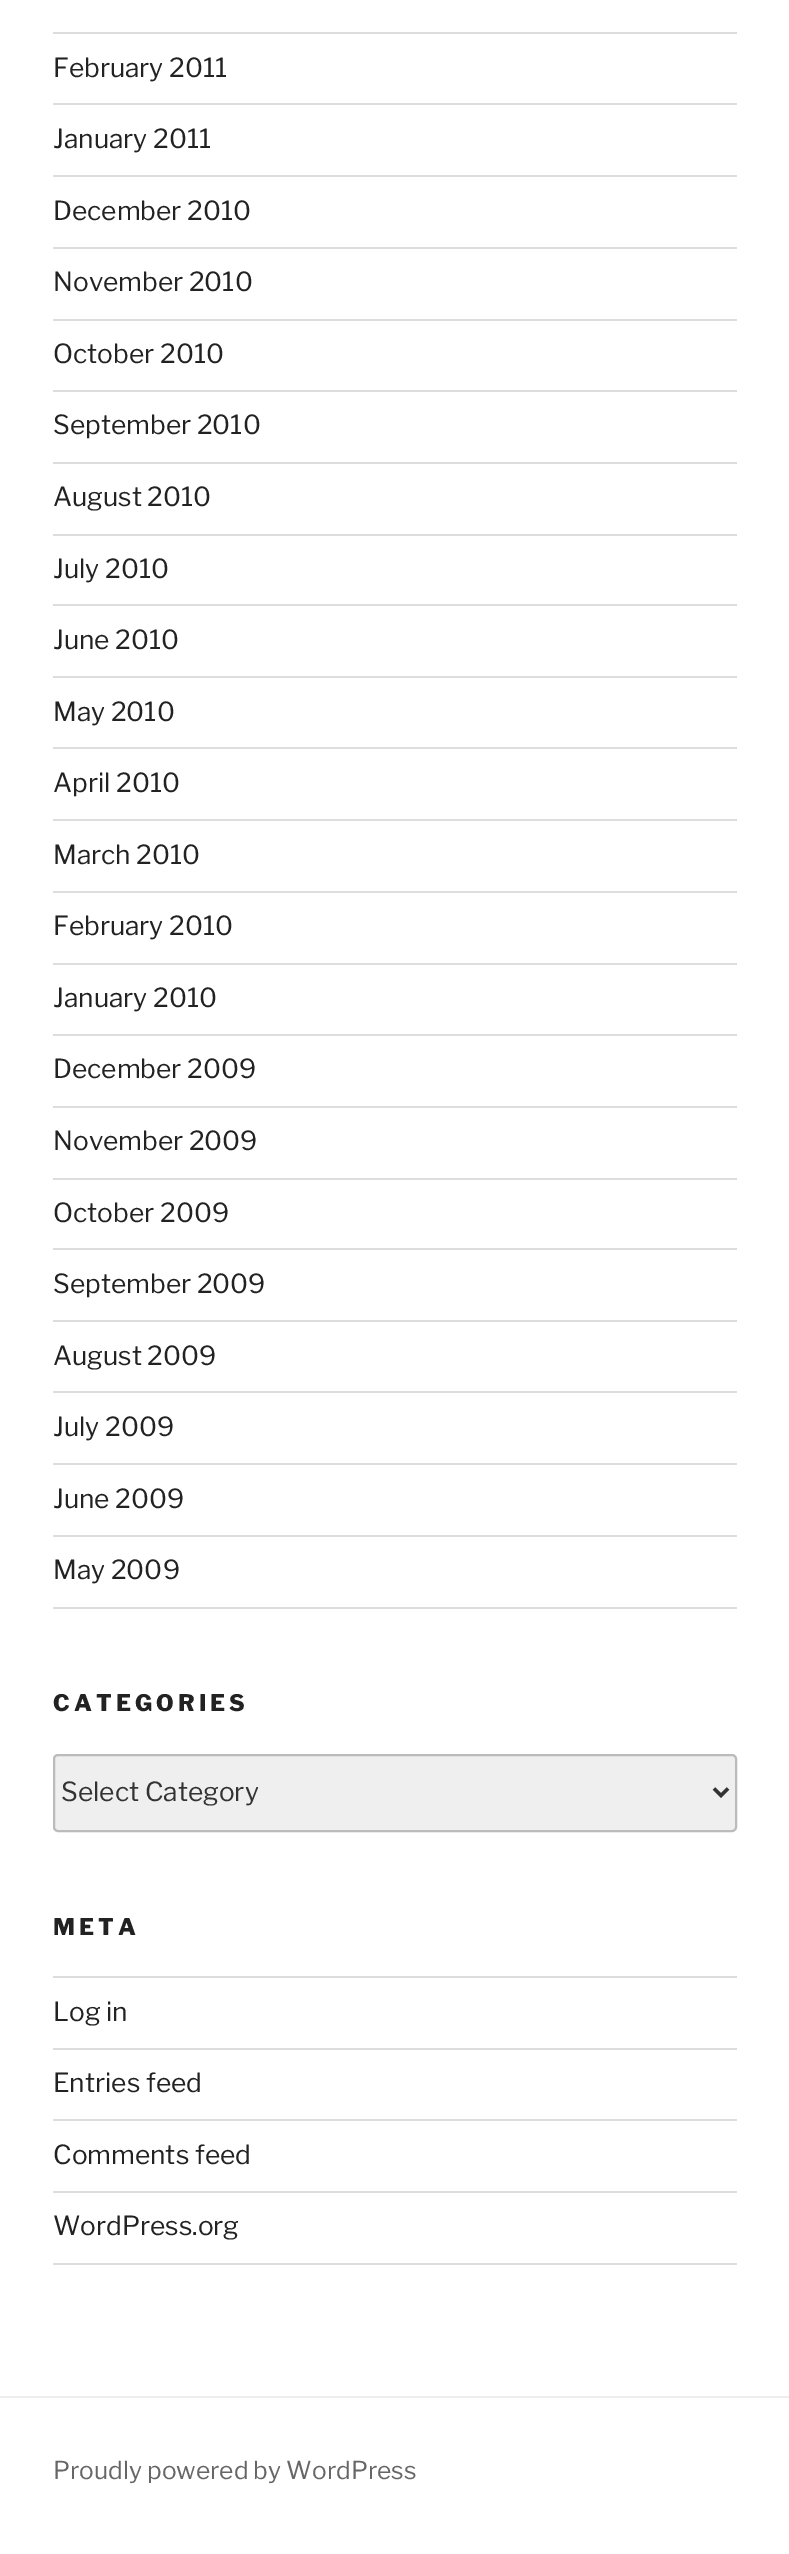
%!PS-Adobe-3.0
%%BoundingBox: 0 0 789 2554
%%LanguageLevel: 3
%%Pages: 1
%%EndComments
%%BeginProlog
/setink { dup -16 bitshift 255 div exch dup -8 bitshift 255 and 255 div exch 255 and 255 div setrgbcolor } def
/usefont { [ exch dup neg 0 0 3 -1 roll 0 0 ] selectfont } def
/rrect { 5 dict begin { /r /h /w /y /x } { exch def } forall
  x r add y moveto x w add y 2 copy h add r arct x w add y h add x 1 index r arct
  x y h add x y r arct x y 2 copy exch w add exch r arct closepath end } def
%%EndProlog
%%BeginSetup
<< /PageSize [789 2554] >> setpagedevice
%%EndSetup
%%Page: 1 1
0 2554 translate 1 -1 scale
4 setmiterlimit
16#FFFFFF setink
0 0 789 2554 rectfill
16#DDDDDD setink
53 32 684 2 rectfill
53 103 684 2 rectfill
/LibreFranklin-Thin 26.25 usefont
16#222222 setink
53 77 moveto (February 2011) show
16#DDDDDD setink
53 175 684 2 rectfill
16#222222 setink
53 148 moveto (January 2011) show
16#DDDDDD setink
53 247 684 2 rectfill
16#222222 setink
53 220 moveto (December 2010) show
16#DDDDDD setink
53 319 684 2 rectfill
16#222222 setink
53 291 moveto (November 2010) show
16#DDDDDD setink
53 390 684 2 rectfill
16#222222 setink
53 363 moveto (October 2010) show
16#DDDDDD setink
53 462 684 2 rectfill
16#222222 setink
53 434 moveto (September 2010) show
16#DDDDDD setink
53 534 684 2 rectfill
16#222222 setink
53 506 moveto (August 2010) show
16#DDDDDD setink
53 604 684 2 rectfill
16#222222 setink
53 578 moveto (July 2010) show
16#DDDDDD setink
53 676 684 2 rectfill
16#222222 setink
53 649 moveto (June 2010) show
16#DDDDDD setink
53 747 684 2 rectfill
16#222222 setink
53 721 moveto (May 2010) show
16#DDDDDD setink
53 819 684 2 rectfill
16#222222 setink
53 792 moveto (April 2010) show
16#DDDDDD setink
53 891 684 2 rectfill
16#222222 setink
53 864 moveto (March 2010) show
16#DDDDDD setink
53 963 684 2 rectfill
16#222222 setink
53 935 moveto (February 2010) show
16#DDDDDD setink
53 1034 684 2 rectfill
16#222222 setink
53 1007 moveto (January 2010) show
16#DDDDDD setink
53 1106 684 2 rectfill
16#222222 setink
53 1078 moveto (December 2009) show
16#DDDDDD setink
53 1178 684 2 rectfill
16#222222 setink
53 1150 moveto (November 2009) show
16#DDDDDD setink
53 1248 684 2 rectfill
16#222222 setink
53 1222 moveto (October 2009) show
16#DDDDDD setink
53 1320 684 2 rectfill
16#222222 setink
53 1293 moveto (September 2009) show
16#DDDDDD setink
53 1391 684 2 rectfill
16#222222 setink
53 1365 moveto (August 2009) show
16#DDDDDD setink
53 1463 684 2 rectfill
16#222222 setink
53 1436 moveto (July 2009) show
16#DDDDDD setink
53 1535 684 2 rectfill
16#222222 setink
53 1508 moveto (June 2009) show
16#DDDDDD setink
53 1607 684 2 rectfill
16#222222 setink
53 1579 moveto (May 2009) show
/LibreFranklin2-Thin 22.75 usefont
53 1711 moveto 4.1 0 (CATEGORIES) ashow
16#EFEFEF setink
54 1755 682 76 4 rrect gsave fill grestore
16#BBBBBB setink
2 setlinewidth
stroke
16#333333 setink
3.5 setlinewidth
714 1788.5 moveto 721 1795.5 lineto 728 1788.5 lineto stroke
/LibreFranklin-Thin 26.25 usefont
61 1801 moveto (Select Category) show
/LibreFranklin2-Thin 22.75 usefont
16#222222 setink
53 1935 moveto 4.1 0 (META) ashow
16#DDDDDD setink
53 1976 684 2 rectfill
53 2048 684 2 rectfill
/LibreFranklin-Thin 26.25 usefont
16#222222 setink
53 2021 moveto (Log in) show
16#DDDDDD setink
53 2119 684 2 rectfill
16#222222 setink
53 2092 moveto (Entries feed) show
16#DDDDDD setink
53 2191 684 2 rectfill
16#222222 setink
53 2164 moveto (Comments feed) show
16#DDDDDD setink
53 2263 684 2 rectfill
16#222222 setink
53 2235 moveto (WordPress.org) show
16#EEEEEE setink
0 2396 789 2 rectfill
/LibreFranklin-Thin 24.5 usefont
16#666666 setink
53 2479 moveto (Proudly powered by WordPress) show
showpage
%%EOF
